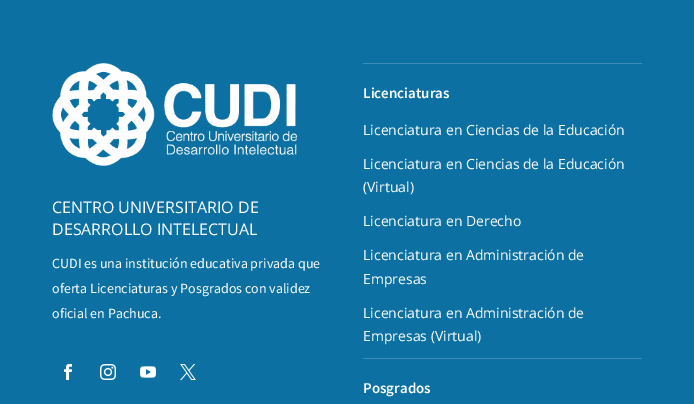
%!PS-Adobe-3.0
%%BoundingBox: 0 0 694 404
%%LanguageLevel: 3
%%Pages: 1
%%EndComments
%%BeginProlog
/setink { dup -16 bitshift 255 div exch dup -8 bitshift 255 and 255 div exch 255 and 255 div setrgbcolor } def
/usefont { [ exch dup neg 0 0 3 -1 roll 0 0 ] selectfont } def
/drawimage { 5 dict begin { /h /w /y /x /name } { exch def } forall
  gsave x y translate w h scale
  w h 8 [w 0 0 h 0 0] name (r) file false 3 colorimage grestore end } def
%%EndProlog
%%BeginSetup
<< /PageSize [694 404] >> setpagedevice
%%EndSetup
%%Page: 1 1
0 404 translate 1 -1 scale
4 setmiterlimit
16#0C71A2 setink
0 0 694 404 rectfill
(img1.raw) 52 63 245 103 drawimage
/OpenSans-Regular 16 usefont
16#FFFFFF setink
52 213 moveto (CENTRO UNIVERSITARIO DE) show
52 235 moveto (DESARROLLO INTELECTUAL) show
/SourceSansPro-Regular 14 usefont
[
    [(CUDI es una institución educativa privada que) 52 268]
    [(oferta Licenciaturas y Posgrados con validez) 52 293]
    [(oficial en Pachuca.) 52 318]
] { aload pop moveto show } forall
(img2.raw) 64 364 8 16 drawimage
(img3.raw) 100 364 16 16 drawimage
(img4.raw) 140 366 16 12 drawimage
(img5.raw) 180 364 16 16 drawimage
16#3D8DB5 setink
363 63 279 1 rectfill
/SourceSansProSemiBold-SemiBold 15 usefont
16#FFFFFF setink
363 98 moveto (Licenciaturas) show
/OpenSans-Regular 14 usefont
[
    [(Licenciatura en Ciencias de la Educación) 363 135]
    [(Licenciatura en Ciencias de la Educación) 363 169]
    [(\(Virtual\)) 363 192]
    [(Licenciatura en Derecho) 363 226]
    [(Licenciatura en Administración de) 363 260]
    [(Empresas) 363 284]
    [(Licenciatura en Administración de) 363 318]
    [(Empresas \(Virtual\)) 363 341]
] { aload pop moveto show } forall
16#3D8DB5 setink
363 358 279 1 rectfill
/SourceSansProSemiBold-SemiBold 15 usefont
16#FFFFFF setink
363 393 moveto (Posgrados) show
showpage
%%EOF
